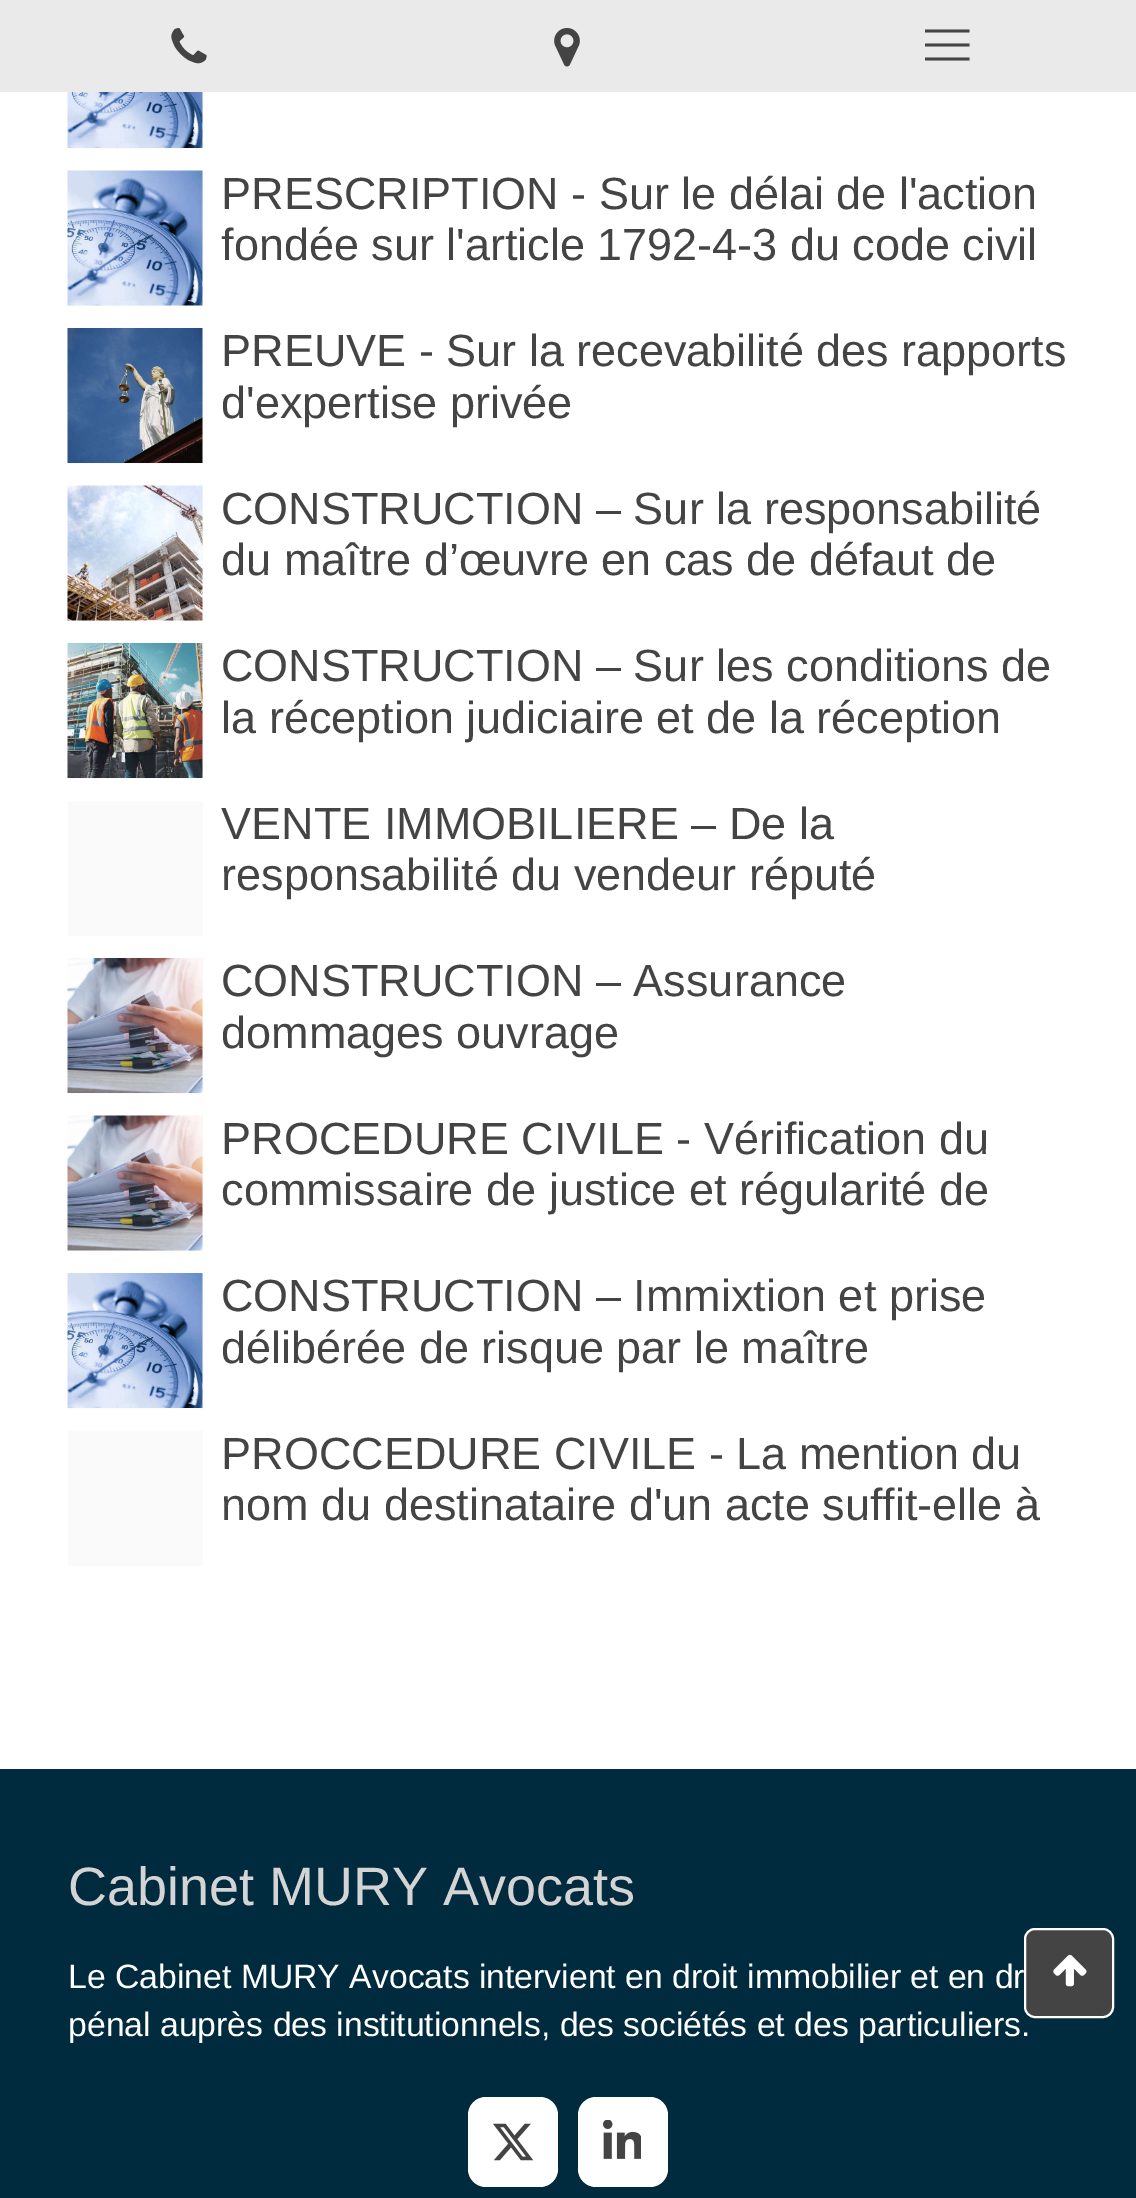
%!PS-Adobe-3.0
%%BoundingBox: 0 0 1136 2198
%%LanguageLevel: 3
%%Pages: 1
%%EndComments
%%BeginProlog
/setink { dup -16 bitshift 255 div exch dup -8 bitshift 255 and 255 div exch 255 and 255 div setrgbcolor } def
/usefont { [ exch dup neg 0 0 3 -1 roll 0 0 ] selectfont } def
/rrect { 5 dict begin { /r /h /w /y /x } { exch def } forall
  x r add y moveto x w add y 2 copy h add r arct x w add y h add x 1 index r arct
  x y h add x y r arct x y 2 copy exch w add exch r arct closepath end } def
/drawimage { 5 dict begin { /h /w /y /x /name } { exch def } forall
  gsave x y translate w h scale
  w h 8 [w 0 0 h 0 0] name (r) file false 3 colorimage grestore end } def
%%EndProlog
%%BeginSetup
<< /PageSize [1136 2198] >> setpagedevice
%%EndSetup
%%Page: 1 1
0 2198 translate 1 -1 scale
4 setmiterlimit
16#FFFFFF setink
0 0 1136 2198 rectfill
16#EAEAEA setink
0 0 1136 92 rectfill
(img1.raw) 171 28 36 36 drawimage
(img2.raw) 554 28 26 39 drawimage
16#444444 setink
2.7 setlinewidth
925 45 moveto 969.5 45 lineto 925 31 moveto 969.5 31 lineto 925 59 moveto 969.5 59 lineto stroke
16#FAFAFA setink
68 92 135 57 rectfill
(img3.raw) 67 92 136 56 drawimage
68 171 135 135 rectfill
(img4.raw) 67 170 136 136 drawimage
/LiberationSans-Regular 45 usefont
16#444444 setink
221 209 moveto (PRESCRIPTION - Sur le délai de l'action) show
221 260 moveto (fondée sur l'article 1792-4-3 du code civil) show
16#FAFAFA setink
68 329 135 135 rectfill
(img5.raw) 67 328 136 135 drawimage
16#444444 setink
221 366 moveto (PREUVE - Sur la recevabilité des rapports) show
221 418 moveto (d'expertise privée) show
16#FAFAFA setink
68 486 135 135 rectfill
(img6.raw) 67 485 136 136 drawimage
16#444444 setink
221 524 moveto (CONSTRUCTION – Sur la responsabilité) show
221 575 moveto (du maître d’œuvre en cas de défaut de) show
16#FAFAFA setink
68 644 135 135 rectfill
(img7.raw) 67 643 136 135 drawimage
16#444444 setink
221 681 moveto (CONSTRUCTION – Sur les conditions de) show
221 733 moveto (la réception judiciaire et de la réception) show
16#FAFAFA setink
68 801 135 135 rectfill
16#444444 setink
221 839 moveto (VENTE IMMOBILIERE – De la) show
221 890 moveto (responsabilité du vendeur réputé) show
16#FAFAFA setink
68 959 135 135 rectfill
(img8.raw) 67 958 136 135 drawimage
16#444444 setink
221 996 moveto (CONSTRUCTION – Assurance) show
221 1048 moveto (dommages ouvrage) show
16#FAFAFA setink
68 1116 135 135 rectfill
(img9.raw) 67 1115 136 136 drawimage
16#444444 setink
221 1154 moveto (PROCEDURE CIVILE - Vérification du) show
221 1205 moveto (commissaire de justice et régularité de) show
16#FAFAFA setink
68 1274 135 135 rectfill
(img10.raw) 67 1273 136 135 drawimage
16#444444 setink
221 1311 moveto (CONSTRUCTION – Immixtion et prise) show
221 1363 moveto (délibérée de risque par le maître) show
16#FAFAFA setink
68 1431 135 135 rectfill
16#444444 setink
221 1469 moveto (PROCCEDURE CIVILE - La mention du) show
221 1520 moveto (nom du destinataire d'un acte suffit-elle à) show
16#002A3D setink
0 1769 1136 429 rectfill
/LiberationSans-Regular 54 usefont
16#D4D4D4 setink
68 1905 moveto (Cabinet MURY Avocats) show
/LiberationSans-Regular 33.75 usefont
16#FFFFFF setink
68 1988 moveto (Le Cabinet MURY Avocats intervient en droit immobilier et en dr) show
68 2036 moveto (pénal auprès des institutionnels, des sociétés et des particuliers.) show
468 2097 90 90 18 rrect fill
(img11.raw) 493 2123 41 38 drawimage
578 2097 90 90 18 rrect fill
(img12.raw) 603 2120 38 39 drawimage
16#444444 setink
1025 1929 88 88 10 rrect gsave fill grestore
16#FFFFFF setink
2 setlinewidth
stroke
(img13.raw) 1053 1954 34 33 drawimage
showpage
%%EOF
